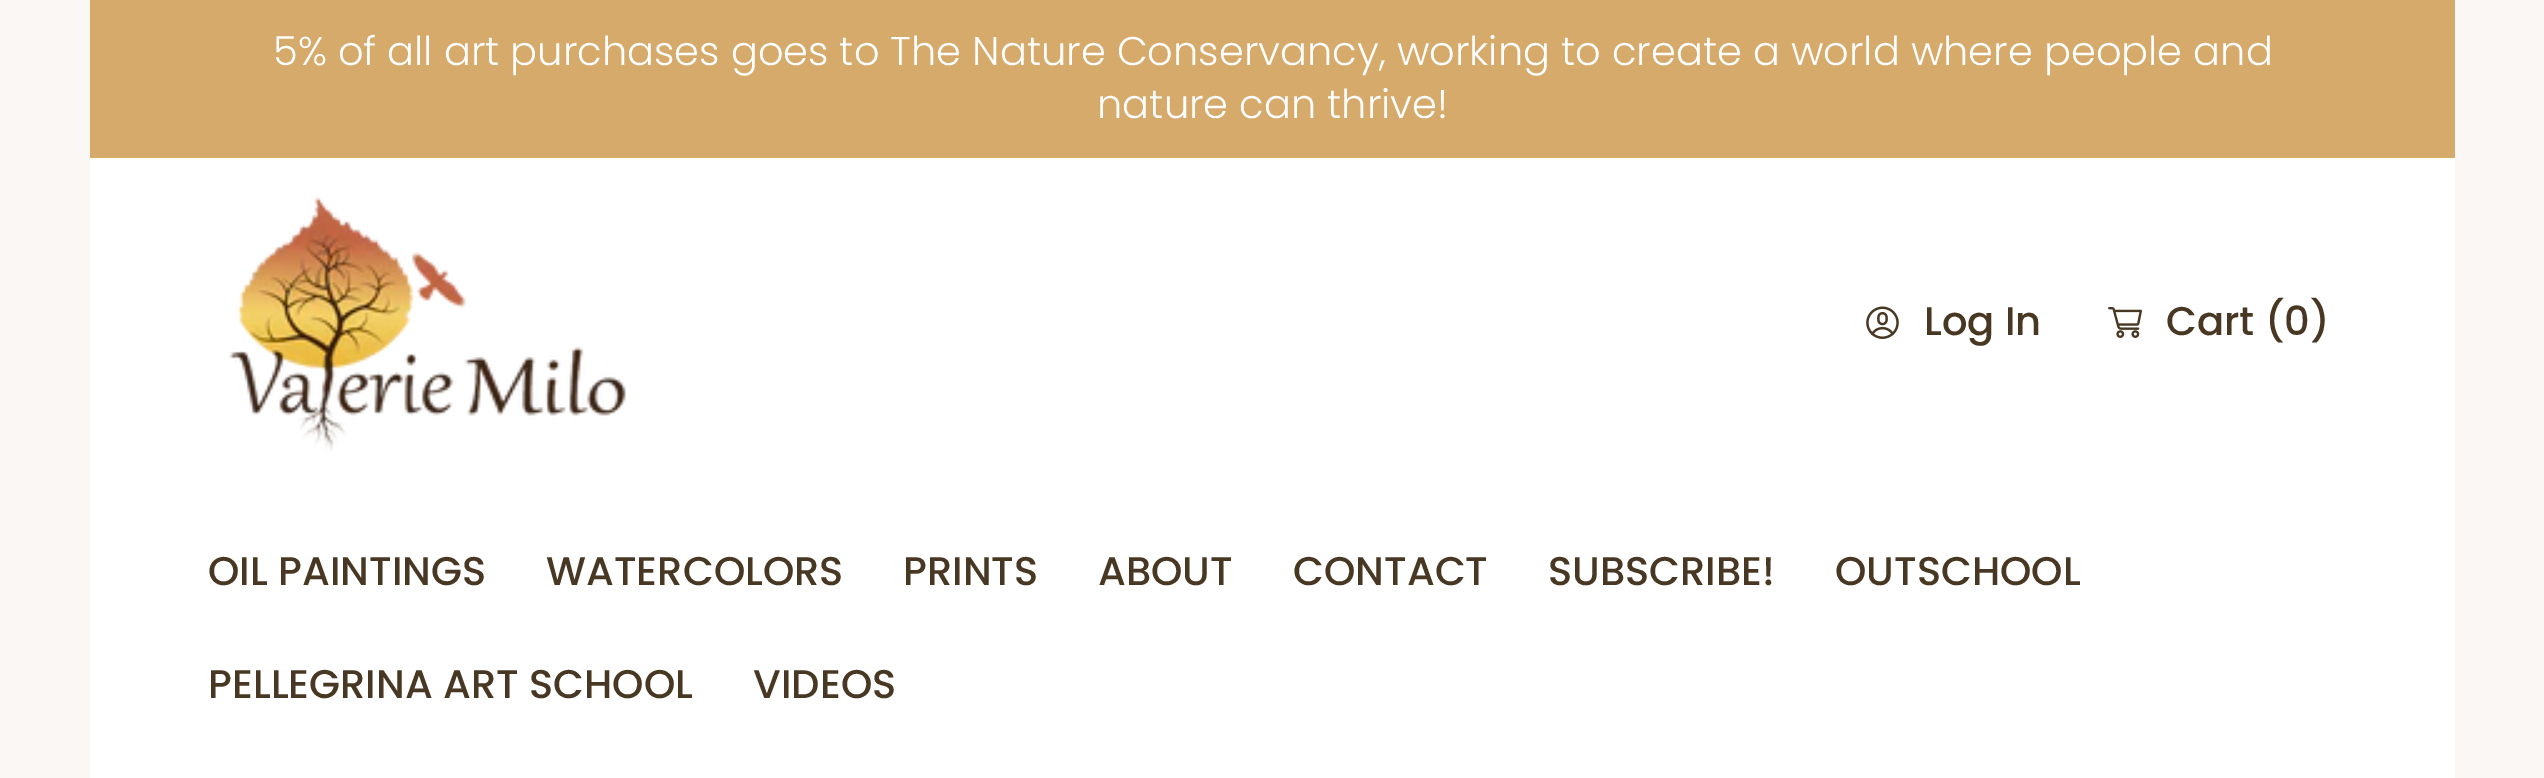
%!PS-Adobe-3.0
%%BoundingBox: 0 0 2544 778
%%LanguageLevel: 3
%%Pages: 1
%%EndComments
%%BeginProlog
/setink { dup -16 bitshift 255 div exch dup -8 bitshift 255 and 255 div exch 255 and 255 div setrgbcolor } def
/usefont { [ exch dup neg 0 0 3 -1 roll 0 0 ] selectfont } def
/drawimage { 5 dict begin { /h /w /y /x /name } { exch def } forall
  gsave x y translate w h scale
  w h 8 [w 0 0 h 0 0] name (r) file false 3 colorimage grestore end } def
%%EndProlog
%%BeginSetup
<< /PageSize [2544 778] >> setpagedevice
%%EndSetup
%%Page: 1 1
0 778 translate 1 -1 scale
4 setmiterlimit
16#FFFFFF setink
0 0 2544 778 rectfill
[
    [2455 0 89 778 16#FAF7F4]
    [0 0 90 778 16#FAF7F4]
    [90 0 2365 158 16#D6AA6B]
] { aload pop setink rectfill } forall
/Poppins-Light 40 usefont
16#FFFFFF setink
273 65 moveto (5% of all art purchases goes to The Nature Conservancy, working to create a world where people and) show
1097 118 moveto (nature can thrive!) show
(img1.raw) 229 197 397 255 drawimage
(img2.raw) 1866 306 33 33 drawimage
/Poppins-Medium 40 usefont
16#483722 setink
1924 335 moveto (Log In) show
(img3.raw) 2108 307 34 31 drawimage
[
    [(Cart \(0\)) 2166 335]
    [(OIL PAINTINGS) 208 585]
    [(WATERCOLORS) 546 585]
    [(PRINTS) 903 585]
    [(ABOUT) 1098 585]
    [(CONTACT) 1293 585]
    [(SUBSCRIBE!) 1548 585]
    [(OUTSCHOOL) 1835 585]
    [(PELLEGRINA ART SCHOOL) 208 698]
    [(VIDEOS) 753 698]
] { aload pop moveto show } forall
showpage
%%EOF
